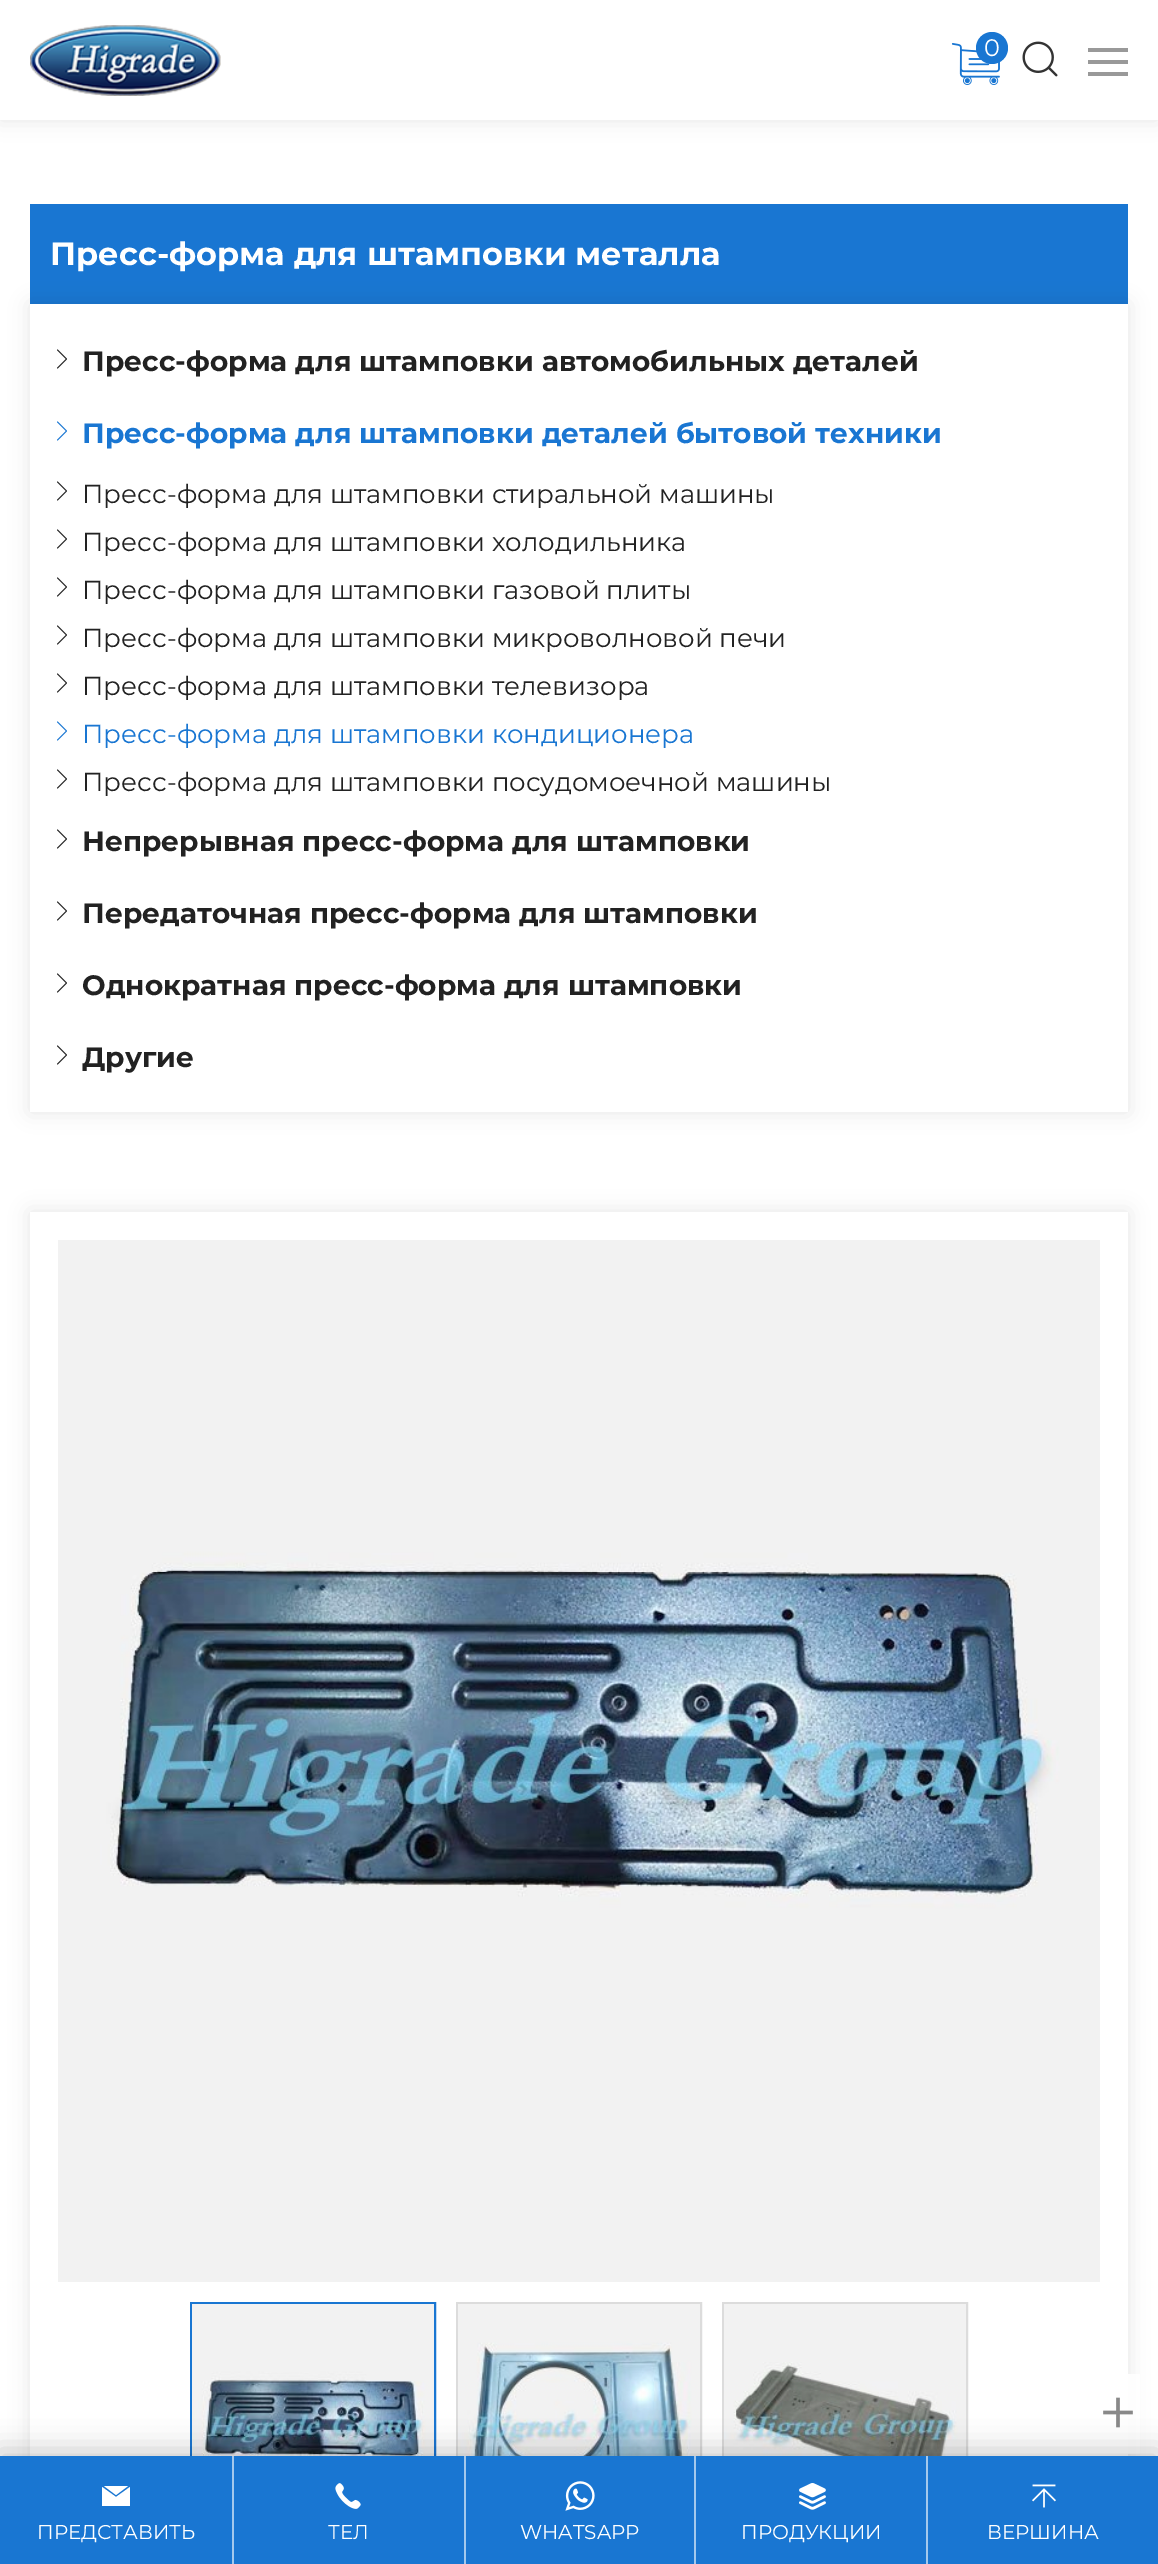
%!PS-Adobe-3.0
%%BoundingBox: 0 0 1158 2564
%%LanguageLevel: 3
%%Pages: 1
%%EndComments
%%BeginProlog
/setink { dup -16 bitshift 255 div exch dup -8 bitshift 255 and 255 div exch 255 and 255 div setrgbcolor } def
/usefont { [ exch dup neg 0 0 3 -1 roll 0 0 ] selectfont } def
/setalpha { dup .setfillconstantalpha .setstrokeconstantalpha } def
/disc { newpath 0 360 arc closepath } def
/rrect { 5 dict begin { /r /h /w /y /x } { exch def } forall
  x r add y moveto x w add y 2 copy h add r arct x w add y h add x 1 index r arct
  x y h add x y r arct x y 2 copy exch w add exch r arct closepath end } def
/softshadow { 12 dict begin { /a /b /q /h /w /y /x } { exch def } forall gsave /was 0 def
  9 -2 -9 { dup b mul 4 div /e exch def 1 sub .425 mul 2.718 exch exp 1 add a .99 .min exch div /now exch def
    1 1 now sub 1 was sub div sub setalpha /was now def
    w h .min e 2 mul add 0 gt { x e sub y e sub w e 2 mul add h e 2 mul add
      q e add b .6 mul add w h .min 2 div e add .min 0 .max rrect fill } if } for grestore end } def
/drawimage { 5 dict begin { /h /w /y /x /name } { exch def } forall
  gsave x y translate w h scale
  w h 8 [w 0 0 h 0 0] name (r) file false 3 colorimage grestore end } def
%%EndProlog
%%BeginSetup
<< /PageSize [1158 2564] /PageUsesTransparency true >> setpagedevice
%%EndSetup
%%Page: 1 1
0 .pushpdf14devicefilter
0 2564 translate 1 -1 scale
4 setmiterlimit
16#FFFFFF setink
0 0 1158 2564 rectfill
16#000000 setink
0 0 1158 120 0 10 0.1 softshadow
16#FFFFFF setink
0 0 1158 120 rectfill
(img1.raw) 30 25 191 71 drawimage
(img2.raw) 951 43 49 42 drawimage
16#1976D2 setink
992 48 16 disc fill
/Montserrat-Regular 24 usefont
16#FFFFFF setink
984 56 moveto (0) show
(img3.raw) 1022 41 36 36 drawimage
[
    [1088 48 40 4 16#999999]
    [1088 60 40 4 16#999999]
    [1088 72 40 4 16#999999]
    [30 204 1098 100 16#1976D2]
] { aload pop setink rectfill } forall
/Montserrat-Bold 32 usefont
16#FFFFFF setink
50 265 moveto (Пресс-форма для штамповки металла) show
gsave
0 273 moveto 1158 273 lineto 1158 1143 lineto 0 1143 lineto closepath 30 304 moveto 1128 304 lineto 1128 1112 lineto 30 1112 lineto closepath eoclip newpath
16#000000 setink
30 304 1098 808 0 10 0.1 softshadow
grestore
(img4.raw) 57 349 10 20 drawimage
/Montserrat-Bold 28 usefont
16#222222 setink
82 371 moveto (Пресс-форма для штамповки автомобильных деталей) show
(img5.raw) 57 421 10 20 drawimage
16#1976D2 setink
82 443 moveto (Пресс-форма для штамповки деталей бытовой техники) show
(img4.raw) 57 481 10 20 drawimage
/Montserrat-Regular 26 usefont
16#222222 setink
82 503 moveto (Пресс-форма для штамповки стиральной машины) show
(img4.raw) 57 529 10 20 drawimage
82 551 moveto (Пресс-форма для штамповки холодильника) show
(img4.raw) 57 577 10 20 drawimage
82 599 moveto (Пресс-форма для штамповки газовой плиты) show
(img4.raw) 57 625 10 20 drawimage
82 647 moveto (Пресс-форма для штамповки микроволновой печи) show
(img4.raw) 57 673 10 20 drawimage
82 695 moveto (Пресс-форма для штамповки телевизора) show
(img5.raw) 57 721 10 20 drawimage
16#1976D2 setink
82 743 moveto (Пресс-форма для штамповки кондиционера) show
(img4.raw) 57 769 10 20 drawimage
16#222222 setink
82 791 moveto (Пресс-форма для штамповки посудомоечной машины) show
(img4.raw) 57 829 10 20 drawimage
/Montserrat-Bold 28 usefont
82 851 moveto (Непрерывная пресс-форма для штамповки) show
(img4.raw) 57 901 10 20 drawimage
82 923 moveto (Передаточная пресс-форма для штамповки) show
(img4.raw) 57 973 10 20 drawimage
82 995 moveto (Однократная пресс-форма для штамповки) show
(img4.raw) 57 1045 10 20 drawimage
82 1067 moveto (Другие) show
gsave
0 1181 moveto 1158 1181 lineto 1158 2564 lineto 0 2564 lineto closepath 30 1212 moveto 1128 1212 lineto 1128 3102 lineto 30 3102 lineto closepath eoclip newpath
16#000000 setink
30 1212 1098 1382 0 10 0.1 softshadow
grestore
(img6.raw) 58 1240 1042 1042 drawimage
16#1976D2 setink
2 setlinewidth
191 2303 244 244 rectstroke
(img7.raw) 192 2304 242 152 drawimage
16#DCDCDC setink
457 2303 244 244 rectstroke
(img8.raw) 458 2304 242 152 drawimage
723 2303 244 244 rectstroke
(img9.raw) 724 2304 242 152 drawimage
0.9 setalpha
16#FFFFFF setink
1128 2374 12 80 rectfill
1 setalpha
(img10.raw) 1103 2397 30 31 drawimage
16#000000 setink
-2 2450 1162 112 0 14 0.2 softshadow
16#1976D2 setink
0 2456 1158 108 rectfill
16#FFFFFF setink
128 2486 moveto 104 2486 lineto 116 2495 lineto closepath 130 2486 moveto 130 2486 lineto closepath 116 2497 moveto 102 2487 lineto 102 2506 lineto 130 2506 lineto 130 2487 lineto closepath fill
/Montserrat-Regular 20 usefont
37 2539 moveto (ПРЕДСТАВИТЬ) show
16#A3C8ED setink
232 2456 2 108 rectfill
(img11.raw) 335 2483 26 26 drawimage
16#FFFFFF setink
328 2539 moveto (ТЕЛ) show
16#A3C8ED setink
464 2456 2 108 rectfill
(img12.raw) 565 2481 30 30 drawimage
16#FFFFFF setink
520 2539 moveto (WHATSAPP) show
16#A3C8ED setink
694 2456 2 108 rectfill
(img13.raw) 799 2483 27 27 drawimage
16#FFFFFF setink
741 2539 moveto (ПРОДУКЦИИ) show
16#A3C8ED setink
926 2456 2 108 rectfill
(img14.raw) 1032 2484 24 24 drawimage
16#FFFFFF setink
987 2539 moveto (ВЕРШИНА) show
.poppdf14devicefilter showpage
%%EOF
